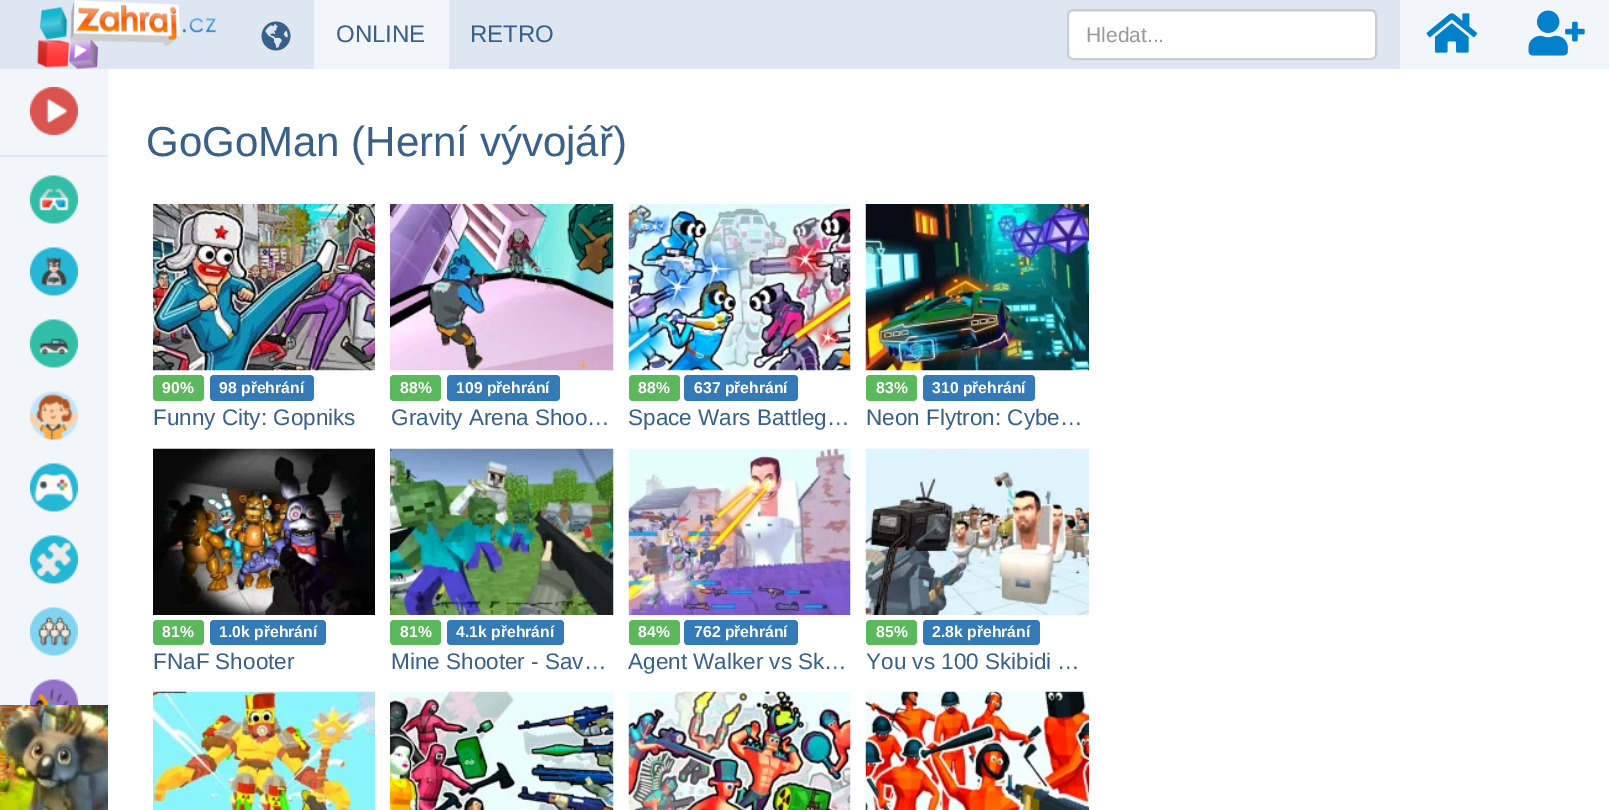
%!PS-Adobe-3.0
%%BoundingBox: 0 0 1609 810
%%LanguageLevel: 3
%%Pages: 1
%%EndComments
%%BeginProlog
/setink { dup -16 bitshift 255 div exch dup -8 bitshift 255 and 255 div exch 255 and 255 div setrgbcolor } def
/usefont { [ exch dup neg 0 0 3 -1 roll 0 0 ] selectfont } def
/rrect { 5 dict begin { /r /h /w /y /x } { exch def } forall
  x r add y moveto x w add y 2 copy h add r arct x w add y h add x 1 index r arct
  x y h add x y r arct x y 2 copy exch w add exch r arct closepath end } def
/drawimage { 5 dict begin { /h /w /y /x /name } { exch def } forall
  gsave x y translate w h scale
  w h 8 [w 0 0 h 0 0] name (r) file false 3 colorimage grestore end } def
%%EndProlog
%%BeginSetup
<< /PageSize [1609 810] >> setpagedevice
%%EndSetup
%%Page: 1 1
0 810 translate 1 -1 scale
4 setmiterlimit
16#FFFFFF setink
0 0 1609 810 rectfill
16#DDE6F1 setink
0 0 1400 69 rectfill
(img1.raw) 37 0 179 69 drawimage
(img2.raw) 261 21 30 30 drawimage
16#F2F6FA setink
314 0 135 69 rectfill
/LiberationSans-Regular 24 usefont
16#386088 setink
336 42 moveto (ONLINE) show
470 42 moveto (RETRO) show
16#FFFFFF setink
1067 9 310 51 6 rrect fill
16#ECECEC setink
1072 12 moveto 1371 12 lineto 1373 12 1376 14 1376 16 curveto 1376 13 1374 11 1371 11 curveto 1073 11 lineto 1070 11 1068 13 1068 16 curveto 1068 14 1070 12 1072 12 curveto closepath fill
16#CCCCCC setink
2 setlinewidth
1068 10 308 49 5 rrect stroke
/LiberationSans-Regular 21 usefont
16#999999 setink
1086 42 moveto (Hledat...) show
16#F2F6FA setink
1400 0 209 69 rectfill
(img3.raw) 1426 13 52 40 drawimage
(img4.raw) 1528 10 57 46 drawimage
0 69 108 636 rectfill
(img5.raw) 30 87 48 48 drawimage
16#DDE6F1 setink
0 155 108 2 rectfill
(img6.raw) 30 175 48 49 drawimage
(img7.raw) 30 247 48 49 drawimage
(img8.raw) 30 319 48 49 drawimage
(img9.raw) 30 391 48 49 drawimage
(img10.raw) 30 463 48 49 drawimage
(img11.raw) 30 535 48 49 drawimage
(img12.raw) 30 607 48 49 drawimage
(img13.raw) 30 679 48 26 drawimage
(img14.raw) 0 705 108 105 drawimage
/LiberationSans-Regular 42 usefont
16#386088 setink
146 156 moveto (GoGoMan \(Herní vývojář\)) show
(img15.raw) 153 204 222 167 drawimage
16#5CB85C setink
153 375 51 26 4 rrect fill
/LiberationSans-Bold 15.75 usefont
16#FFFFFF setink
162 393 moveto (90%) show
16#337AB7 setink
210 375 104 26 4 rrect fill
16#FFFFFF setink
219 393 moveto (98 přehrání) show
/LiberationSans-Regular 22.5 usefont
16#386088 setink
153 425 moveto (Funny City: Gopniks) show
(img16.raw) 390 204 224 167 drawimage
16#5CB85C setink
390 375 51 26 4 rrect fill
/LiberationSans-Bold 15.75 usefont
16#FFFFFF setink
400 393 moveto (88%) show
16#337AB7 setink
447 375 113 26 4 rrect fill
16#FFFFFF setink
456 393 moveto (109 přehrání) show
/LiberationSans-Regular 22.5 usefont
16#386088 setink
391 425 moveto (Gravity Arena Shoo…) show
(img17.raw) 628 204 223 167 drawimage
16#5CB85C setink
629 375 51 26 4 rrect fill
/LiberationSans-Bold 15.75 usefont
16#FFFFFF setink
638 393 moveto (88%) show
16#337AB7 setink
684 375 114 26 4 rrect fill
16#FFFFFF setink
694 393 moveto (637 přehrání) show
/LiberationSans-Regular 22.5 usefont
16#386088 setink
628 425 moveto (Space Wars Battleg…) show
(img18.raw) 865 204 224 167 drawimage
16#5CB85C setink
866 375 51 26 4 rrect fill
/LiberationSans-Bold 15.75 usefont
16#FFFFFF setink
876 393 moveto (83%) show
16#337AB7 setink
923 375 112 26 4 rrect fill
16#FFFFFF setink
932 393 moveto (310 přehrání) show
/LiberationSans-Regular 22.5 usefont
16#386088 setink
866 425 moveto (Neon Flytron: Cybe…) show
(img19.raw) 153 448 222 167 drawimage
16#5CB85C setink
153 620 51 25 4 rrect fill
/LiberationSans-Bold 15.75 usefont
16#FFFFFF setink
162 637 moveto (81%) show
16#337AB7 setink
210 620 116 25 4 rrect fill
16#FFFFFF setink
219 637 moveto (1.0k přehrání) show
/LiberationSans-Regular 22.5 usefont
16#386088 setink
153 669 moveto (FNaF Shooter) show
(img20.raw) 390 448 224 167 drawimage
16#5CB85C setink
390 620 51 25 4 rrect fill
/LiberationSans-Bold 15.75 usefont
16#FFFFFF setink
400 637 moveto (81%) show
16#337AB7 setink
447 620 117 25 4 rrect fill
16#FFFFFF setink
456 637 moveto (4.1k přehrání) show
/LiberationSans-Regular 22.5 usefont
16#386088 setink
391 669 moveto (Mine Shooter - Sav…) show
(img21.raw) 628 448 223 167 drawimage
16#5CB85C setink
629 620 51 25 4 rrect fill
/LiberationSans-Bold 15.75 usefont
16#FFFFFF setink
638 637 moveto (84%) show
16#337AB7 setink
684 620 114 25 4 rrect fill
16#FFFFFF setink
694 637 moveto (762 přehrání) show
/LiberationSans-Regular 22.5 usefont
16#386088 setink
628 669 moveto (Agent Walker vs Sk…) show
(img22.raw) 865 448 224 167 drawimage
16#5CB85C setink
866 620 51 25 4 rrect fill
/LiberationSans-Bold 15.75 usefont
16#FFFFFF setink
876 637 moveto (85%) show
16#337AB7 setink
923 620 117 25 4 rrect fill
16#FFFFFF setink
932 637 moveto (2.8k přehrání) show
/LiberationSans-Regular 22.5 usefont
16#386088 setink
866 669 moveto (You vs 100 Skibidi …) show
(img23.raw) 153 691 222 119 drawimage
(img24.raw) 390 691 224 119 drawimage
(img25.raw) 628 691 223 119 drawimage
(img26.raw) 865 691 224 119 drawimage
showpage
%%EOF
